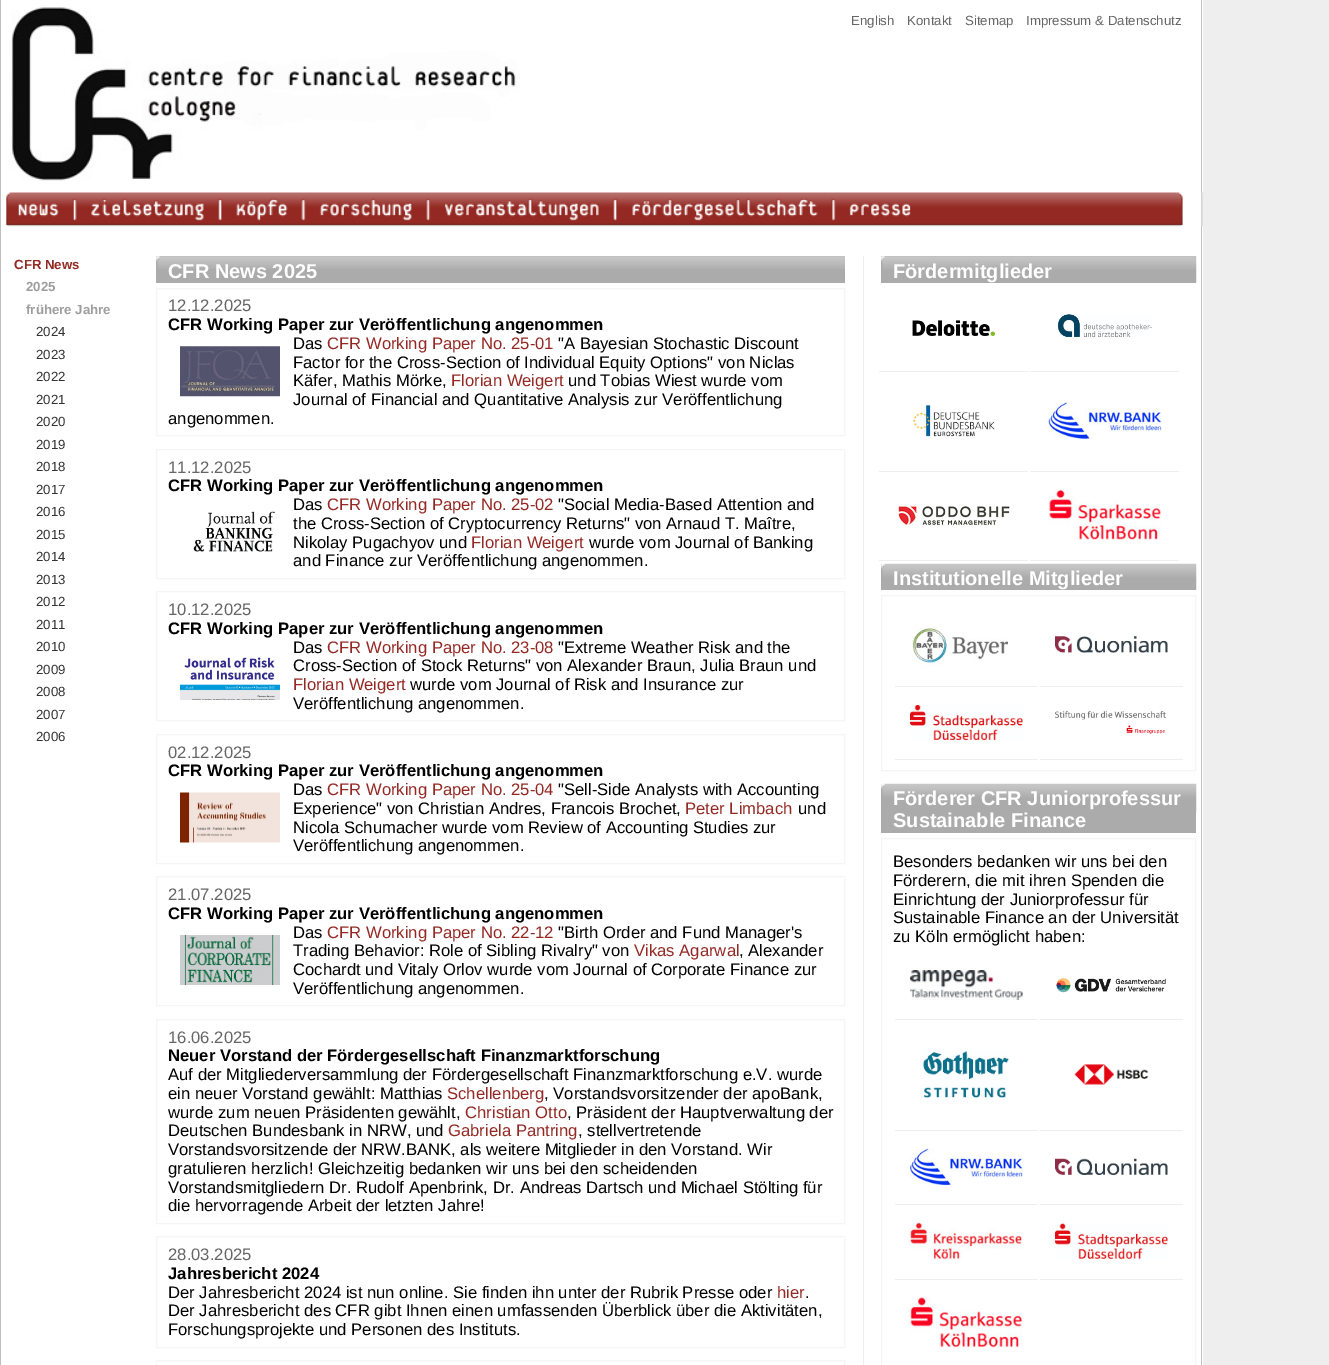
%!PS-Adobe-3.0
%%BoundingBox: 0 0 1329 1365
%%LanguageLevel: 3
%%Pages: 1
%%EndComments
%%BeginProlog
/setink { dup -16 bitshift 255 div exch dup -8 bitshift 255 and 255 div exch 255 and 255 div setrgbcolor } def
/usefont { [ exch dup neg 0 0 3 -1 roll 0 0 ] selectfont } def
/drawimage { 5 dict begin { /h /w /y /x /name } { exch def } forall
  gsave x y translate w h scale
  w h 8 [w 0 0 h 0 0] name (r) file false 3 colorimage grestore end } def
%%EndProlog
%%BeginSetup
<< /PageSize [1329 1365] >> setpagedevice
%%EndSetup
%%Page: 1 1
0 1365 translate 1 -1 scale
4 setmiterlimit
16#EEEEEE setink
0 0 1329 1365 rectfill
[
    [1 0 1202 1365 16#FFFFFF]
    [1201 0 1 1365 16#C0C0C0]
    [0 0 1 1365 16#C0C0C0]
] { aload pop setink rectfill } forall
(img1.raw) 11 7 509 174 drawimage
/LiberationSans-Regular 13.25 usefont
16#666666 setink
[
    [(English) 851 25]
    [(Kontakt) 907 25]
    [(Sitemap) 965 25]
    [(Impressum & Datenschutz) 1026 25]
] { aload pop moveto show } forall
(img2.raw) 6 192 1197 35 drawimage
16#EEEEEE setink
863 256 1 1109 rectfill
/LiberationSans-Bold 13.25 usefont
16#942923 setink
14 269 moveto (CFR News) show
16#9E9E9E setink
26 291 moveto (2025) show
26 314 moveto (frühere Jahre) show
/LiberationSans-Regular 13.25 usefont
16#333333 setink
[
    [(2024) 36 336]
    [(2023) 36 359]
    [(2022) 36 381]
    [(2021) 36 404]
    [(2020) 36 426]
    [(2019) 36 449]
    [(2018) 36 471]
    [(2017) 36 494]
    [(2016) 36 516]
    [(2015) 36 539]
    [(2014) 36 561]
    [(2013) 36 584]
    [(2012) 36 606]
    [(2011) 36 629]
    [(2010) 36 651]
    [(2009) 36 674]
    [(2008) 36 696]
    [(2007) 36 719]
    [(2006) 36 741]
] { aload pop moveto show } forall
16#ABABAB setink
156 256 689 27 rectfill
(img3.raw) 156 256 689 13 drawimage
/LiberationSans-Bold 20 usefont
16#FFFFFF setink
168 278 moveto (CFR News 2025) show
16#F5F5F5 setink
156.5 288.5 688 147 rectstroke
/LiberationSans-Regular 16.65 usefont
16#666666 setink
168 311 moveto (12.12.2025) show
/LiberationSans-Bold 16.65 usefont
16#000000 setink
168 330 moveto (CFR Working Paper zur Veröffentlichung angenommen) show
/LiberationSans-Regular 16.65 usefont
293 349 moveto (Das) show
16#942923 setink
327 349 moveto (CFR Working Paper No. 25-01) show
16#000000 setink
558 349 moveto ("A Bayesian Stochastic Discount) show
(img4.raw) 180 346 100 51 drawimage
293 368 moveto (Factor for the Cross-Section of Individual Equity Options" von Niclas) show
293 386 moveto (Käfer, Mathis Mörke,) show
16#942923 setink
451 386 moveto (Florian Weigert) show
16#000000 setink
[
    [(und Tobias Wiest wurde vom) 568 386]
    [(Journal of Financial and Quantitative Analysis zur Veröffentlichung) 293 405]
    [(angenommen.) 168 424]
] { aload pop moveto show } forall
16#F5F5F5 setink
156.5 449.5 688 129 rectstroke
16#666666 setink
168 473 moveto (11.12.2025) show
/LiberationSans-Bold 16.65 usefont
16#000000 setink
168 491 moveto (CFR Working Paper zur Veröffentlichung angenommen) show
/LiberationSans-Regular 16.65 usefont
293 510 moveto (Das) show
16#942923 setink
327 510 moveto (CFR Working Paper No. 25-02) show
16#000000 setink
558 510 moveto ("Social Media-Based Attention and) show
(img5.raw) 193 511 82 41 drawimage
293 529 moveto (the Cross-Section of Cryptocurrency Returns" von Arnaud T. Maître,) show
293 548 moveto (Nikolay Pugachyov und) show
16#942923 setink
471 548 moveto (Florian Weigert) show
16#000000 setink
589 548 moveto (wurde vom Journal of Banking) show
293 566 moveto (and Finance zur Veröffentlichung angenommen.) show
16#F5F5F5 setink
156.5 591.5 688 129 rectstroke
16#666666 setink
168 615 moveto (10.12.2025) show
/LiberationSans-Bold 16.65 usefont
16#000000 setink
168 634 moveto (CFR Working Paper zur Veröffentlichung angenommen) show
/LiberationSans-Regular 16.65 usefont
293 653 moveto (Das) show
16#942923 setink
327 653 moveto (CFR Working Paper No. 23-08) show
16#000000 setink
558 653 moveto ("Extreme Weather Risk and the) show
(img6.raw) 180 657 100 43 drawimage
293 671 moveto (Cross-Section of Stock Returns" von Alexander Braun, Julia Braun und) show
16#942923 setink
293 690 moveto (Florian Weigert) show
16#000000 setink
410 690 moveto (wurde vom Journal of Risk and Insurance zur) show
293 709 moveto (Veröffentlichung angenommen.) show
16#F5F5F5 setink
156.5 734.5 688 129 rectstroke
16#666666 setink
168 758 moveto (02.12.2025) show
/LiberationSans-Bold 16.65 usefont
16#000000 setink
168 776 moveto (CFR Working Paper zur Veröffentlichung angenommen) show
/LiberationSans-Regular 16.65 usefont
293 795 moveto (Das) show
16#942923 setink
327 795 moveto (CFR Working Paper No. 25-04) show
16#000000 setink
558 795 moveto ("Sell-Side Analysts with Accounting) show
(img7.raw) 180 792 100 51 drawimage
293 814 moveto (Experience" von Christian Andres, Francois Brochet,) show
16#942923 setink
685 814 moveto (Peter Limbach) show
16#000000 setink
[
    [(und) 798 814]
    [(Nicola Schumacher wurde vom Review of Accounting Studies zur) 293 833]
    [(Veröffentlichung angenommen.) 293 851]
] { aload pop moveto show } forall
16#F5F5F5 setink
156.5 876.5 688 129 rectstroke
16#666666 setink
168 900 moveto (21.07.2025) show
/LiberationSans-Bold 16.65 usefont
16#000000 setink
168 919 moveto (CFR Working Paper zur Veröffentlichung angenommen) show
/LiberationSans-Regular 16.65 usefont
293 938 moveto (Das) show
16#942923 setink
327 938 moveto (CFR Working Paper No. 22-12) show
16#000000 setink
558 938 moveto ("Birth Order and Fund Manager's) show
(img8.raw) 180 935 100 50 drawimage
293 956 moveto (Trading Behavior: Role of Sibling Rivalry" von) show
16#942923 setink
634 956 moveto (Vikas Agarwal) show
16#000000 setink
[
    [(, Alexander) 739 956]
    [(Cochardt und Vitaly Orlov wurde vom Journal of Corporate Finance zur) 293 975]
    [(Veröffentlichung angenommen.) 293 994]
] { aload pop moveto show } forall
16#F5F5F5 setink
156.5 1019.5 688 204 rectstroke
16#666666 setink
168 1043 moveto (16.06.2025) show
/LiberationSans-Bold 16.65 usefont
16#000000 setink
168 1061 moveto (Neuer Vorstand der Fördergesellschaft Finanzmarktforschung) show
/LiberationSans-Regular 16.65 usefont
168 1080 moveto (Auf der Mitgliederversammlung der Fördergesellschaft Finanzmarktforschung e.V. wurde) show
168 1099 moveto (ein neuer Vorstand gewählt: Matthias) show
16#942923 setink
447 1099 moveto (Schellenberg) show
16#000000 setink
544 1099 moveto (, Vorstandsvorsitzender der apoBank,) show
168 1118 moveto (wurde zum neuen Präsidenten gewählt,) show
16#942923 setink
465 1118 moveto (Christian Otto) show
16#000000 setink
567 1118 moveto (, Präsident der Hauptverwaltung der) show
168 1136 moveto (Deutschen Bundesbank in NRW, und) show
16#942923 setink
448 1136 moveto (Gabriela Pantring) show
16#000000 setink
[
    [(, stellvertretende) 578 1136]
    [(Vorstandsvorsitzende der NRW.BANK, als weitere Mitglieder in den Vorstand. Wir) 168 1155]
    [(gratulieren herzlich! Gleichzeitig bedanken wir uns bei den scheidenden) 168 1174]
    [(Vorstandsmitgliedern Dr. Rudolf Apenbrink, Dr. Andreas Dartsch und Michael Stölting für) 168 1193]
    [(die hervorragende Arbeit der letzten Jahre!) 168 1211]
] { aload pop moveto show } forall
16#F5F5F5 setink
156.5 1236.5 688 111 rectstroke
16#666666 setink
168 1260 moveto (28.03.2025) show
/LiberationSans-Bold 16.65 usefont
16#000000 setink
168 1279 moveto (Jahresbericht 2024) show
/LiberationSans-Regular 16.65 usefont
168 1298 moveto (Der Jahresbericht 2024 ist nun online. Sie finden ihn unter der Rubrik Presse oder) show
16#942923 setink
777 1298 moveto (hier) show
16#000000 setink
[
    [(.) 805 1298]
    [(Der Jahresbericht des CFR gibt Ihnen einen umfassenden Überblick über die Aktivitäten,) 168 1316]
    [(Forschungsprojekte und Personen des Instituts.) 168 1335]
] { aload pop moveto show } forall
16#F5F5F5 setink
156.5 1360.5 688 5 rectstroke
16#ABABAB setink
881 256 315 27 rectfill
(img9.raw) 881 256 316 27 drawimage
/LiberationSans-Bold 20 usefont
16#FFFFFF setink
893 278 moveto (Fördermitglieder) show
16#EEEEEE setink
879 371 149 1 rectfill
(img10.raw) 912 320 84 16 drawimage
1030 371 149 1 rectfill
(img11.raw) 1057 314 95 23 drawimage
879 471 149 1 rectfill
(img12.raw) 912 404 83 33 drawimage
1030 471 149 1 rectfill
(img13.raw) 1048 402 114 37 drawimage
879 560 149 1 rectfill
(img14.raw) 897 504 113 23 drawimage
1030 560 149 1 rectfill
(img15.raw) 1048 490 114 50 drawimage
(img16.raw) 881 563 316 27 drawimage
16#FFFFFF setink
893 585 moveto (Institutionelle Mitglieder) show
16#F5F5F5 setink
881.5 595.5 314 175 rectstroke
16#EEEEEE setink
895 686 143 1 rectfill
(img17.raw) 910 623 98 44 drawimage
1040 686 143 1 rectfill
(img18.raw) 1055 636 113 17 drawimage
895 759 143 1 rectfill
(img19.raw) 910 705 113 35 drawimage
1040 759 143 1 rectfill
(img20.raw) 1055 711 112 23 drawimage
16#ABABAB setink
881 784 315 49 rectfill
(img21.raw) 881 783 316 30 drawimage
16#FFFFFF setink
893 805 moveto (Förderer CFR Juniorprofessur) show
893 827 moveto (Sustainable Finance) show
16#F5F5F5 setink
881.5 838.5 314 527 rectstroke
/LiberationSans-Regular 16.65 usefont
16#000000 setink
[
    [(Besonders bedanken wir uns bei den) 893 867]
    [(Förderern, die mit ihren Spenden die) 893 886]
    [(Einrichtung der Juniorprofessur für) 893 905]
    [(Sustainable Finance an der Universität) 893 923]
    [(zu Köln ermöglicht haben:) 893 942]
] { aload pop moveto show } forall
16#EEEEEE setink
895 1019 143 1 rectfill
(img22.raw) 910 970 113 30 drawimage
1040 1019 143 1 rectfill
(img23.raw) 1056 978 110 15 drawimage
895 1130 143 1 rectfill
(img24.raw) 923 1050 86 48 drawimage
1040 1130 143 1 rectfill
(img25.raw) 1074 1064 75 21 drawimage
895 1204 143 1 rectfill
(img26.raw) 910 1148 113 37 drawimage
1040 1204 143 1 rectfill
(img27.raw) 1055 1158 113 17 drawimage
895 1279 143 1 rectfill
(img28.raw) 910 1222 113 38 drawimage
1040 1279 143 1 rectfill
(img29.raw) 1055 1223 113 36 drawimage
(img30.raw) 910 1297 113 51 drawimage
showpage
%%EOF
